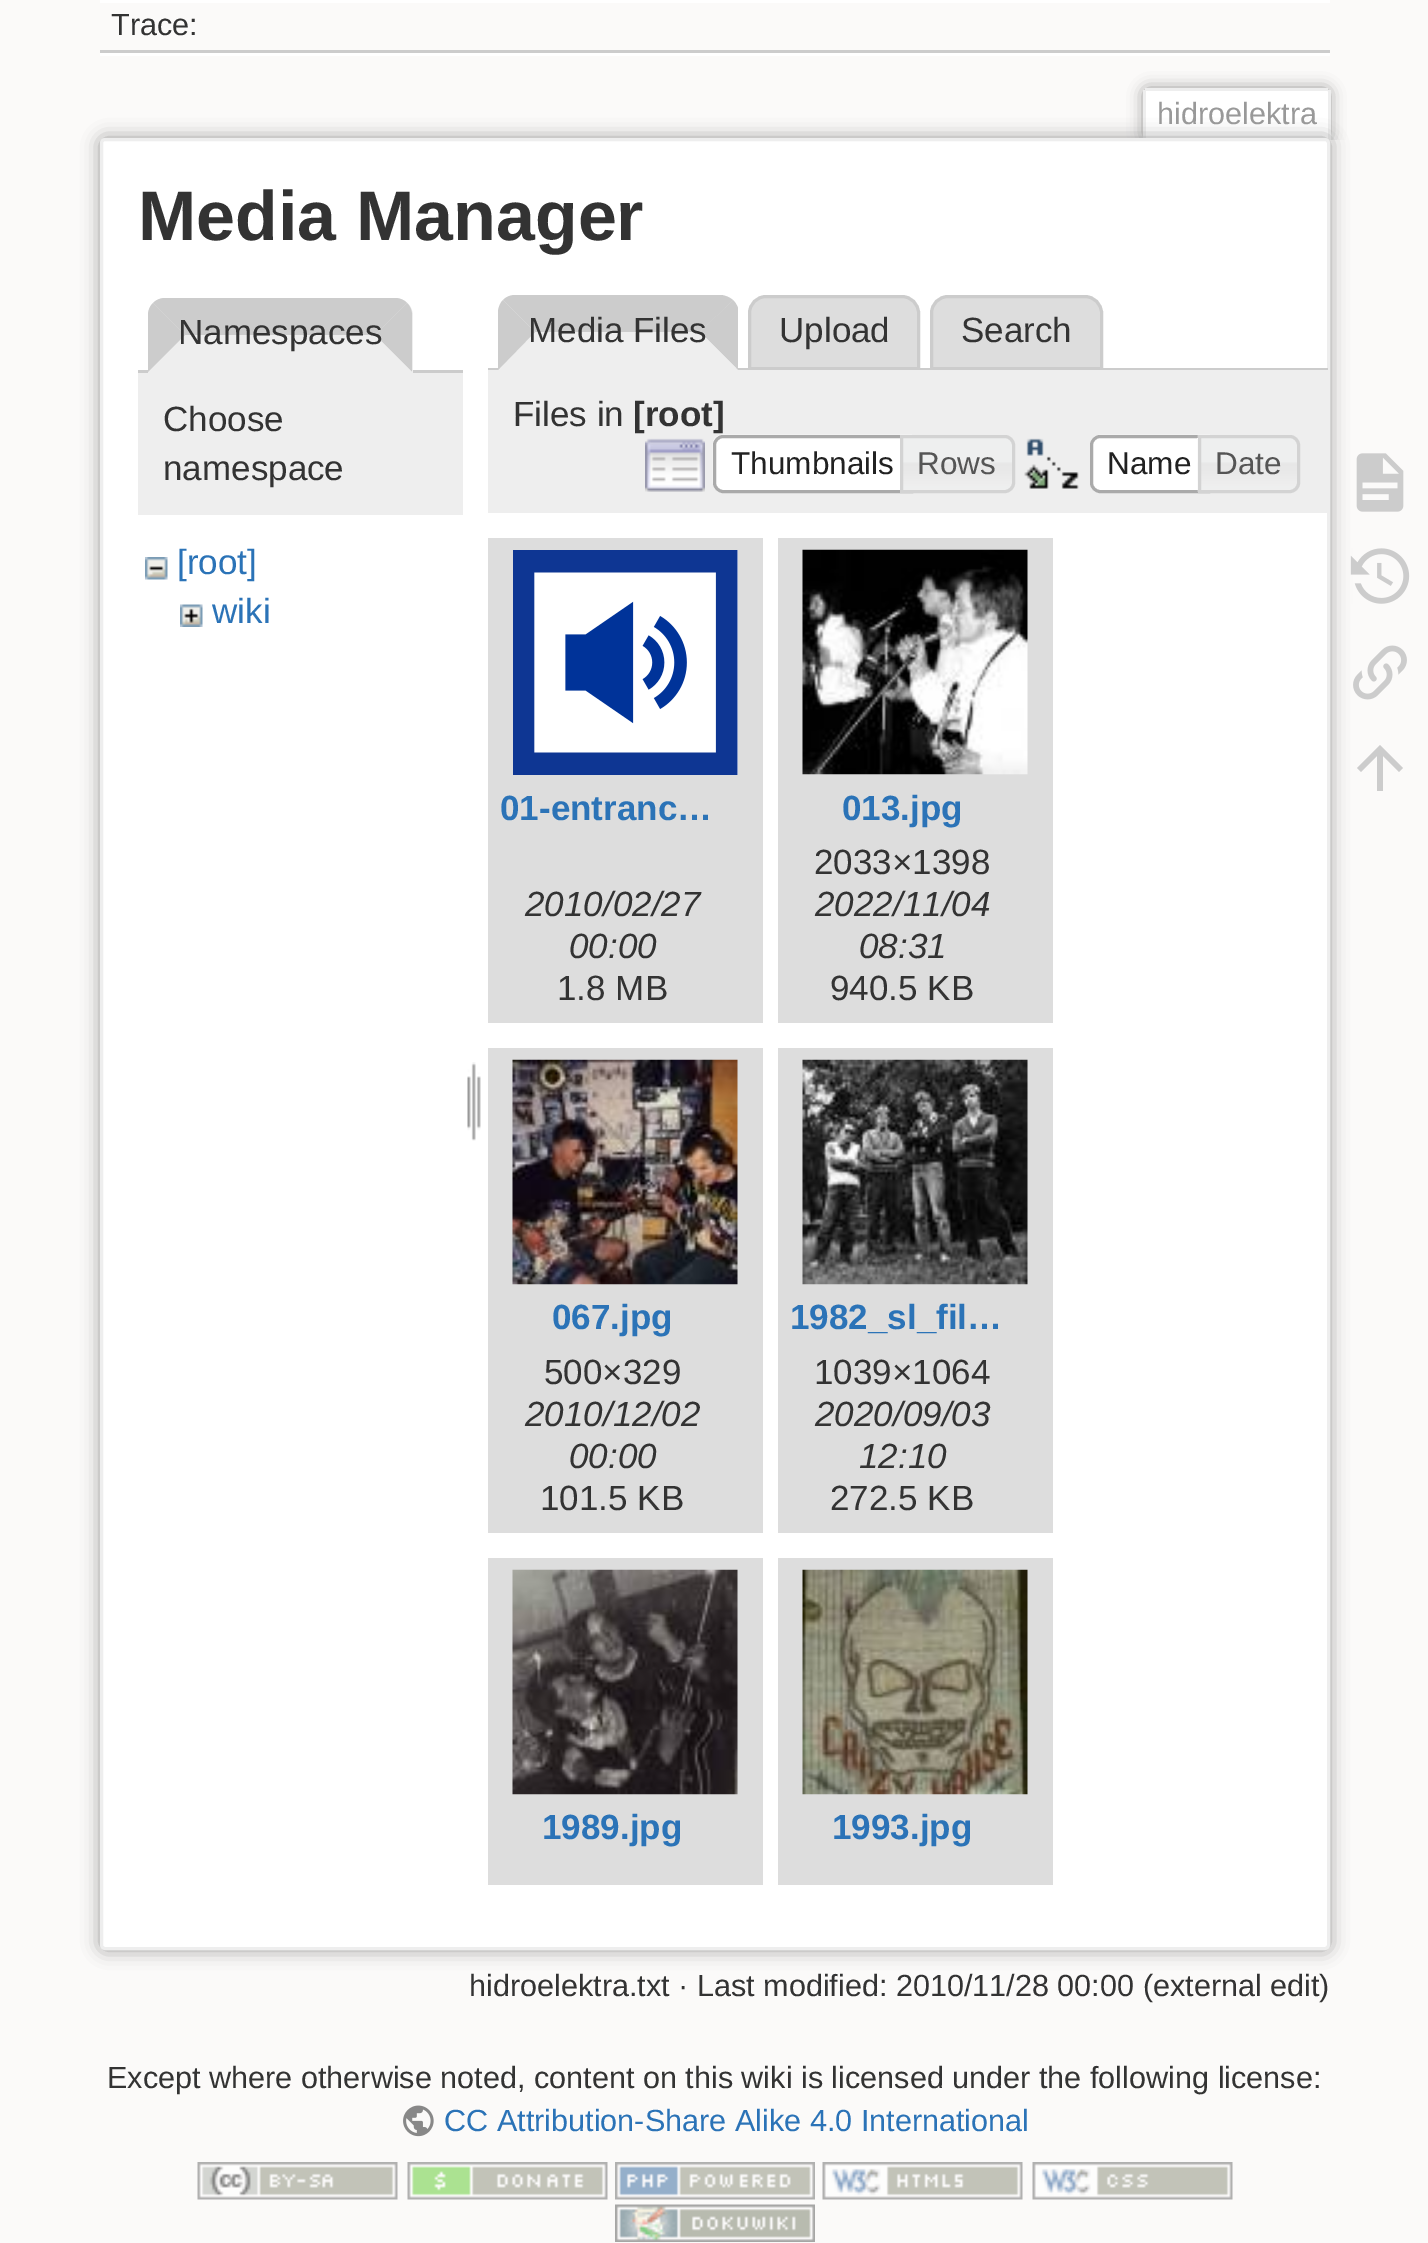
%!PS-Adobe-3.0
%%BoundingBox: 0 0 1428 2243
%%LanguageLevel: 3
%%Pages: 1
%%EndComments
%%BeginProlog
/setink { dup -16 bitshift 255 div exch dup -8 bitshift 255 and 255 div exch 255 and 255 div setrgbcolor } def
/usefont { [ exch dup neg 0 0 3 -1 roll 0 0 ] selectfont } def
/setalpha { dup .setfillconstantalpha .setstrokeconstantalpha } def
/rrect { 5 dict begin { /r /h /w /y /x } { exch def } forall
  x r add y moveto x w add y 2 copy h add r arct x w add y h add x 1 index r arct
  x y h add x y r arct x y 2 copy exch w add exch r arct closepath end } def
/softshadow { 12 dict begin { /a /b /q /h /w /y /x } { exch def } forall gsave /was 0 def
  9 -2 -9 { dup b mul 4 div /e exch def 1 sub .425 mul 2.718 exch exp 1 add a .99 .min exch div /now exch def
    1 1 now sub 1 was sub div sub setalpha /was now def
    w h .min e 2 mul add 0 gt { x e sub y e sub w e 2 mul add h e 2 mul add
      q e add b .6 mul add w h .min 2 div e add .min 0 .max rrect fill } if } for grestore end } def
/drawimage { 5 dict begin { /h /w /y /x /name } { exch def } forall
  gsave x y translate w h scale
  w h 8 [w 0 0 h 0 0] name (r) file false 3 colorimage grestore end } def
%%EndProlog
%%BeginSetup
<< /PageSize [1428 2243] /PageUsesTransparency true >> setpagedevice
%%EndSetup
%%Page: 1 1
0 .pushpdf14devicefilter
0 2243 translate 1 -1 scale
4 setmiterlimit
16#FBFAF9 setink
0 0 1428 2243 rectfill
[
    [100 53 1230 3 16#FFFFFF]
    [100 0 1230 3 16#FFFFFF]
    [100 50 1230 3 16#CCCCCC]
] { aload pop setink rectfill } forall
/LiberationSans-Regular 30.6 usefont
16#333333 setink
111 35 moveto (Trace:) show
gsave
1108 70 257 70 rectclip
16#999999 setink
1143 88 187 52 5 7.5 1 softshadow
grestore
16#FFFFFF setink
1147.5 90 moveto 1325.5 90 lineto 1327 90 1328 91 1328 92.5 curveto 1328 140 lineto 1145 140 lineto 1145 92.5 lineto 1145 91 1146 90 1147.5 90 curveto closepath fill
[
    [1145 88 183 3 16#EEEEEE]
    [1328 90 3 50 16#EEEEEE]
    [1143 90 3 50 16#EEEEEE]
] { aload pop setink rectfill } forall
16#999999 setink
1157 124 moveto (hidroelektra) show
100 138 1230 1812 5 9 1 softshadow
16#FFFFFF setink
101.5 139.5 1227 1809 3.5 rrect gsave fill grestore
16#EEEEEE setink
3 setlinewidth
stroke
/LiberationSans-Bold 70 usefont
16#333333 setink
138 240 moveto (Media Manager) show
16#CCCCCC setink
138 370 325 3 rectfill
16#EEEEEE setink
166 298 moveto 395 298 lineto 405 298 413 306 413 316 curveto 413 373 lineto 148 373 lineto 148 316 lineto 148 306 156 298 166 298 curveto closepath fill
16#CCCCCC setink
165 298 moveto 160 298 156 300 153 303 curveto 185 335 lineto 375 335 lineto 407 303 lineto 404 300 400 298 395 298 curveto closepath fill
412 372 moveto 412 315 lineto 412 310 410 306 407 303 curveto 375 335 lineto closepath fill
16#EEEEEE setink
412 372 moveto 375 335 lineto 185 335 lineto 148 372 lineto closepath fill
16#CCCCCC setink
153 303 moveto 150 306 148 310 148 315 curveto 148 372 lineto 185 335 lineto closepath fill
/LiberationSans-Regular 35 usefont
16#333333 setink
178 344 moveto (Namespaces) show
16#EEEEEE setink
138 373 325 142 rectfill
16#333333 setink
163 431 moveto (Choose) show
163 480 moveto (namespace) show
(img1.raw) 145 557 23 23 drawimage
16#2B73B7 setink
177 574 moveto ([root]) show
(img2.raw) 180 604 23 23 drawimage
212 623 moveto (wiki) show
(img3.raw) 467 1062 14 79 drawimage
16#CCCCCC setink
515 295 moveto 720 295 lineto 725 295 729 297 733 300 curveto 700 332 lineto 535 332 lineto 503 300 lineto 506 297 510 295 515 295 curveto closepath fill
16#DDDDDD setink
766 296.5 moveto 902 296.5 lineto 911 296.5 918.5 304 918.5 313 curveto 918.5 368.5 lineto 749.5 368.5 lineto 749.5 313 lineto 749.5 304 757 296.5 766 296.5 curveto closepath gsave fill grestore
16#CCCCCC setink
stroke
16#DDDDDD setink
948 296.5 moveto 1085 296.5 lineto 1094 296.5 1101.5 304 1101.5 313 curveto 1101.5 368.5 lineto 931.5 368.5 lineto 931.5 313 lineto 931.5 304 939 296.5 948 296.5 curveto closepath gsave fill grestore
16#CCCCCC setink
stroke
488 368 840 2 rectfill
733 300 moveto 700 332 lineto 738 370 lineto 738 308 lineto 737 305 735 302 733 300 curveto closepath fill
16#EEEEEE setink
738 370 moveto 700 332 lineto 535 332 lineto 498 370 lineto closepath fill
16#CCCCCC setink
503 300 moveto 500 303 498 308 498 312 curveto 498 370 lineto 535 332 lineto closepath fill
16#333333 setink
[
    [(Media Files) 528 342]
    [(Upload) 779 342]
    [(Search) 961 342]
] { aload pop moveto show } forall
16#EEEEEE setink
488 370 839 143 rectfill
16#333333 setink
513 426 moveto (Files in) show
/LiberationSans-Bold 35 usefont
633 426 moveto ([root]) show
(img4.raw) 645 438 60 54 drawimage
16#FFFFFF setink
723 435 moveto 913 435 lineto 913 493 lineto 723 493 lineto 717.5 493 713 488.5 713 483 curveto 713 445 lineto 713 439.5 717.5 435 723 435 curveto closepath fill
(img5.raw) 712 434 200 53 drawimage
16#AAAAAA setink
723 436.5 moveto 911.5 436.5 lineto 911.5 491.5 lineto 723 491.5 lineto 718.5 491.5 714.5 487.5 714.5 483 curveto 714.5 445 lineto 714.5 440.5 718.5 436.5 723 436.5 curveto closepath stroke
/LiberationSans-Regular 31.5 usefont
16#212121 setink
731 474 moveto (Thumbnails) show
(img6.raw) 903 435 112 55 drawimage
16#D3D3D3 setink
901.5 436.5 moveto 1005 436.5 lineto 1009.5 436.5 1013.5 440.5 1013.5 445 curveto 1013.5 483 lineto 1013.5 487.5 1009.5 491.5 1005 491.5 curveto 901.5 491.5 lineto closepath stroke
16#555555 setink
917 474 moveto (Rows) show
(img7.raw) 1024 438 55 51 drawimage
16#FFFFFF setink
1100 435 moveto 1210 435 lineto 1210 493 lineto 1100 493 lineto 1094.5 493 1090 488.5 1090 483 curveto 1090 445 lineto 1090 439.5 1094.5 435 1100 435 curveto closepath fill
(img8.raw) 1090 434 120 9 drawimage
16#AAAAAA setink
1100 436.5 moveto 1208.5 436.5 lineto 1208.5 491.5 lineto 1100 491.5 lineto 1095.5 491.5 1091.5 487.5 1091.5 483 curveto 1091.5 445 lineto 1091.5 440.5 1095.5 436.5 1100 436.5 curveto closepath stroke
16#212121 setink
1107 474 moveto (Name) show
(img9.raw) 1197 435 103 57 drawimage
16#D3D3D3 setink
1199.5 436.5 moveto 1290 436.5 lineto 1294.5 436.5 1298.5 440.5 1298.5 445 curveto 1298.5 483 lineto 1298.5 487.5 1294.5 491.5 1290 491.5 curveto 1199.5 491.5 lineto closepath stroke
16#555555 setink
1215 474 moveto (Date) show
16#DDDDDD setink
488 538 275 485 rectfill
(img10.raw) 513 550 225 225 drawimage
/LiberationSans-Bold 35 usefont
16#2B73B7 setink
500 820 moveto (01-entranc…) show
/LiberationSans-Italic 35 usefont
16#333333 setink
525 916 moveto (2010/02/27) show
569 958 moveto (00:00) show
/LiberationSans-Regular 35 usefont
557 1000 moveto (1.8 MB) show
16#DDDDDD setink
778 538 275 485 rectfill
(img11.raw) 802 549 226 226 drawimage
/LiberationSans-Bold 35 usefont
16#2B73B7 setink
842 820 moveto (013.jpg) show
/LiberationSans-Regular 35 usefont
16#333333 setink
814 874 moveto (2033×1398) show
/LiberationSans-Italic 35 usefont
815 916 moveto (2022/11/04) show
859 958 moveto (08:31) show
/LiberationSans-Regular 35 usefont
830 1000 moveto (940.5 KB) show
16#DDDDDD setink
488 1048 275 485 rectfill
(img12.raw) 512 1059 226 226 drawimage
/LiberationSans-Bold 35 usefont
16#2B73B7 setink
552 1329 moveto (067.jpg) show
/LiberationSans-Regular 35 usefont
16#333333 setink
544 1384 moveto (500×329) show
/LiberationSans-Italic 35 usefont
525 1426 moveto (2010/12/02) show
569 1468 moveto (00:00) show
/LiberationSans-Regular 35 usefont
540 1510 moveto (101.5 KB) show
16#DDDDDD setink
778 1048 275 485 rectfill
(img13.raw) 802 1059 226 226 drawimage
/LiberationSans-Bold 35 usefont
16#2B73B7 setink
790 1329 moveto (1982_sl_fil…) show
/LiberationSans-Regular 35 usefont
16#333333 setink
814 1384 moveto (1039×1064) show
/LiberationSans-Italic 35 usefont
815 1426 moveto (2020/09/03) show
859 1468 moveto (12:10) show
/LiberationSans-Regular 35 usefont
830 1510 moveto (272.5 KB) show
16#DDDDDD setink
488 1558 275 327 rectfill
(img14.raw) 512 1569 226 226 drawimage
/LiberationSans-Bold 35 usefont
16#2B73B7 setink
542 1839 moveto (1989.jpg) show
16#DDDDDD setink
778 1558 275 327 rectfill
(img15.raw) 802 1569 226 226 drawimage
16#2B73B7 setink
832 1839 moveto (1993.jpg) show
/LiberationSans-Regular 30.6 usefont
16#333333 setink
469 1996 moveto (hidroelektra.txt · Last modified: 2010/11/28 00:00 \(external edit\)) show
(img16.raw) 1356 453 48 59 drawimage
(img17.raw) 1350 548 60 56 drawimage
(img18.raw) 1353 645 54 55 drawimage
16#CCCCCC setink
1383 791 moveto 1377 791 lineto 1377 756 lineto 1361 772 lineto 1357 768 lineto 1380 745 lineto 1403 768 lineto 1399 772 lineto 1383 756 lineto closepath fill
16#333333 setink
107 2088 moveto (Except where otherwise noted, content on this wiki is licensed under the following license:) show
(img19.raw) 403 2105 31 32 drawimage
16#2B73B7 setink
444 2131 moveto (CC Attribution-Share Alike 4.0 International) show
(img20.raw) 197 2162 201 38 drawimage
(img21.raw) 407 2162 201 38 drawimage
(img22.raw) 615 2162 200 38 drawimage
(img23.raw) 822 2162 201 38 drawimage
(img24.raw) 1032 2162 201 38 drawimage
(img25.raw) 615 2204 200 38 drawimage
.poppdf14devicefilter showpage
%%EOF
